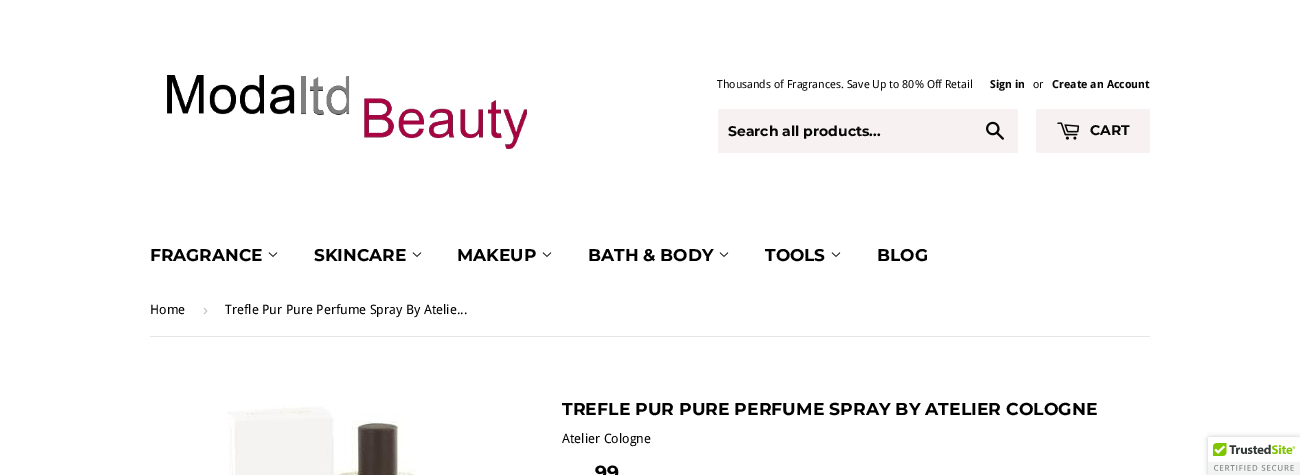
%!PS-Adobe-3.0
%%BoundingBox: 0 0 1300 475
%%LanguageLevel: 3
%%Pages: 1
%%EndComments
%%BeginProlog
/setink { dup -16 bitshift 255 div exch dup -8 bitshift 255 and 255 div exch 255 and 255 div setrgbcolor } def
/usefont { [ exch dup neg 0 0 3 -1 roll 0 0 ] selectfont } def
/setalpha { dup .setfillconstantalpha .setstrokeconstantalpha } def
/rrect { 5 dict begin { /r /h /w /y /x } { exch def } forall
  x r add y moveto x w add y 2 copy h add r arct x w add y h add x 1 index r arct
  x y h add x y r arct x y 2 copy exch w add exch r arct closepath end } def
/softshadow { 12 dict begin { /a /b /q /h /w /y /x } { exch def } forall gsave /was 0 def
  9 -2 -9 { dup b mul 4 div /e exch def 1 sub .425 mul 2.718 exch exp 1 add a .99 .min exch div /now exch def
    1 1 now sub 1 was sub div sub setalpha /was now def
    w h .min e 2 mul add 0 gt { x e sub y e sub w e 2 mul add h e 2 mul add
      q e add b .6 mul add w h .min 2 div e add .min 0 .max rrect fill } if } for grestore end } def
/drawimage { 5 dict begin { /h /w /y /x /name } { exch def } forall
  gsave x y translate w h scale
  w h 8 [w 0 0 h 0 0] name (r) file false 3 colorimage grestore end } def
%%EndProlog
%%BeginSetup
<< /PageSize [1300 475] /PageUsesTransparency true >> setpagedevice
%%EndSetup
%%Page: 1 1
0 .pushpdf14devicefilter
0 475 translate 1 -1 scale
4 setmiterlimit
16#FFFFFF setink
0 0 1300 475 rectfill
(img1.raw) 167 75 360 74 drawimage
/DroidSans-Regular 11.05 usefont
16#060606 setink
717 88 moveto (Thousands of Fragrances. Save Up to 80% Off Retail) show
/DroidSans-Bold 11.05 usefont
990 88 moveto (Sign in) show
/DroidSans-Regular 11.05 usefont
1033 88 moveto (or) show
/DroidSans-Bold 11.05 usefont
1052 88 moveto (Create an Account) show
16#F7F1F1 setink
718 109 300 44 2 rrect fill
/Montserrat-Thin 14 usefont
16#060606 setink
728 136 moveto (Search all products...) show
(img2.raw) 986 121 18 19 drawimage
16#F7F1F1 setink
1036 109 114 44 2 rrect fill
(img3.raw) 1057 122 23 18 drawimage
16#060606 setink
1090 135 moveto (CART) show
/Montserrat-Thin 17 usefont
16#000000 setink
150 261 moveto (FRAGRANCE) show
(img4.raw) 268 252 10 5 drawimage
314 261 moveto (SKINCARE) show
(img4.raw) 412 252 10 5 drawimage
457 261 moveto (MAKEUP) show
(img4.raw) 542 252 10 5 drawimage
588 261 moveto (BATH & BODY) show
(img4.raw) 719 252 10 5 drawimage
765 261 moveto (TOOLS) show
(img4.raw) 831 252 10 5 drawimage
877 261 moveto (BLOG) show
16#E8E5E5 setink
150 336 1000 1 rectfill
/DroidSans-Regular 13 usefont
16#000000 setink
150 314 moveto (Home) show
/LiberationSans-Regular 15 usefont
16#BBBBBB setink
203 315 moveto (›) show
/DroidSans-Regular 13 usefont
16#000000 setink
225 314 moveto (Trefle Pur Pure Perfume Spray By Atelie...) show
(img5.raw) 227 405 190 70 drawimage
/Montserrat-Thin 17.3 usefont
562 415 moveto (TREFLE PUR PURE PERFUME SPRAY BY ATELIER COLOGNE) show
/DroidSans-Regular 13 usefont
562 443 moveto (Atelier Cologne) show
/Montserrat-Thin 19 usefont
595 479 moveto (99) show
1208 437 92 38 2 2.5 0.2 softshadow
16#FFFFFF setink
1210 437 moveto 1300 437 lineto 1300 475 lineto 1208 475 lineto 1208 439 lineto 1208 438 1209 437 1210 437 curveto closepath fill
(img6.raw) 1208 437 92 38 drawimage
.poppdf14devicefilter showpage
%%EOF
